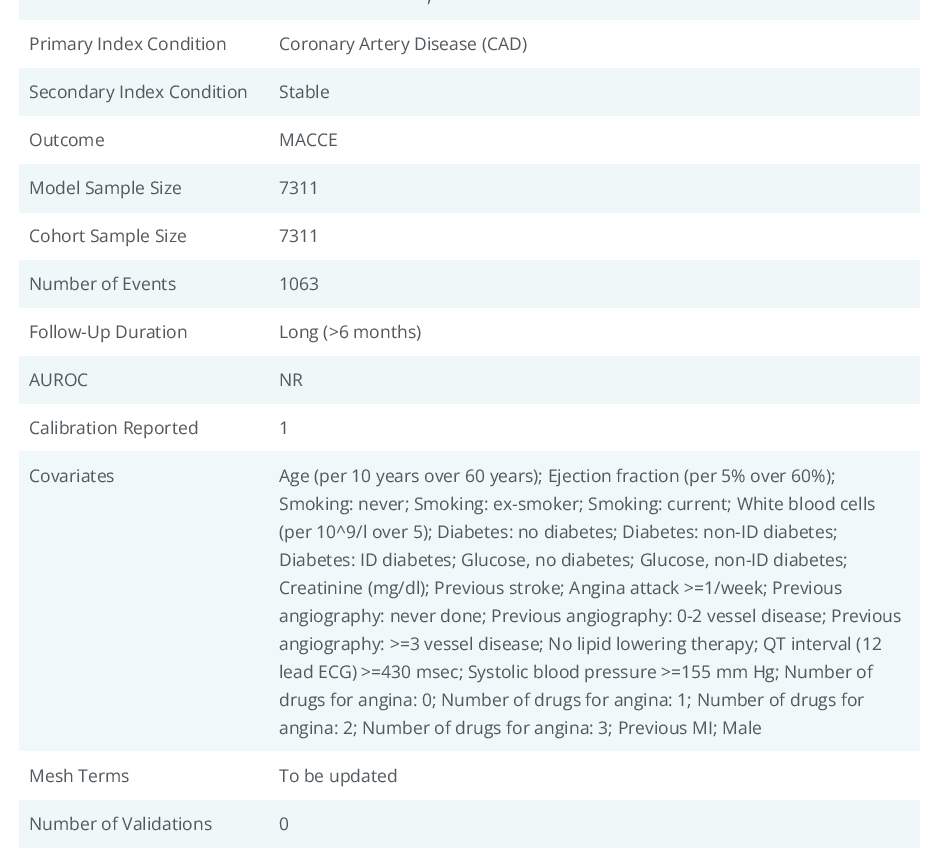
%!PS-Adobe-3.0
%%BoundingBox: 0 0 938 858
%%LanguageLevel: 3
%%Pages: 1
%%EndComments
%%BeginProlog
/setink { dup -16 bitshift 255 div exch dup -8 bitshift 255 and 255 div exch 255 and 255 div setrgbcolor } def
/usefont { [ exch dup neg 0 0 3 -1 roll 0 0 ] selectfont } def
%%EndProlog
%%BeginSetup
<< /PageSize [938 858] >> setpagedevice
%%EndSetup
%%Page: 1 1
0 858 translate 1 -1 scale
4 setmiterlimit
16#FFFFFF setink
0 0 938 858 rectfill
16#F0F7F9 setink
19 0 901 20 rectfill
/OpenSans-Regular 17.5 usefont
16#52595E setink
[
    [(,) 427 2]
    [(Primary Index Condition) 29 50]
    [(Coronary Artery Disease \(CAD\)) 279 50]
] { aload pop moveto show } forall
16#F0F7F9 setink
19 68 901 48 rectfill
16#52595E setink
[
    [(Secondary Index Condition) 29 98]
    [(Stable) 279 98]
    [(Outcome) 29 146]
    [(MACCE) 279 146]
] { aload pop moveto show } forall
16#F0F7F9 setink
19 164 901 49 rectfill
16#52595E setink
[
    [(Model Sample Size) 29 194]
    [(7311) 279 194]
    [(Cohort Sample Size) 29 242]
    [(7311) 279 242]
] { aload pop moveto show } forall
16#F0F7F9 setink
19 260 901 48 rectfill
16#52595E setink
[
    [(Number of Events) 29 290]
    [(1063) 279 290]
    [(Follow-Up Duration) 29 338]
    [(Long \(>6 months\)) 279 338]
] { aload pop moveto show } forall
16#F0F7F9 setink
19 356 901 48 rectfill
16#52595E setink
[
    [(AUROC) 29 386]
    [(NR) 279 386]
    [(Calibration Reported) 29 434]
    [(1) 279 434]
] { aload pop moveto show } forall
16#F1F8FA setink
19 451 901 300 rectfill
16#52595E setink
[
    [(Covariates) 29 482]
    [(Age \(per 10 years over 60 years\); Ejection fraction \(per 5% over 60%\);) 279 482]
    [(Smoking: never; Smoking: ex-smoker; Smoking: current; White blood cells) 279 510]
    [(\(per 10^9/l over 5\); Diabetes: no diabetes; Diabetes: non-ID diabetes;) 279 538]
    [(Diabetes: ID diabetes; Glucose, no diabetes; Glucose, non-ID diabetes;) 279 566]
    [(Creatinine \(mg/dl\); Previous stroke; Angina attack >=1/week; Previous) 279 594]
    [(angiography: never done; Previous angiography: 0-2 vessel disease; Previous) 279 622]
    [(angiography: >=3 vessel disease; No lipid lowering therapy; QT interval \(12) 279 650]
    [(lead ECG\) >=430 msec; Systolic blood pressure >=155 mm Hg; Number of) 279 678]
    [(drugs for angina: 0; Number of drugs for angina: 1; Number of drugs for) 279 706]
    [(angina: 2; Number of drugs for angina: 3; Previous MI; Male) 279 734]
    [(Mesh Terms) 29 782]
    [(To be updated) 279 782]
] { aload pop moveto show } forall
16#F0F7F9 setink
19 800 901 48 rectfill
16#52595E setink
29 830 moveto (Number of Validations) show
279 830 moveto (0) show
showpage
%%EOF
